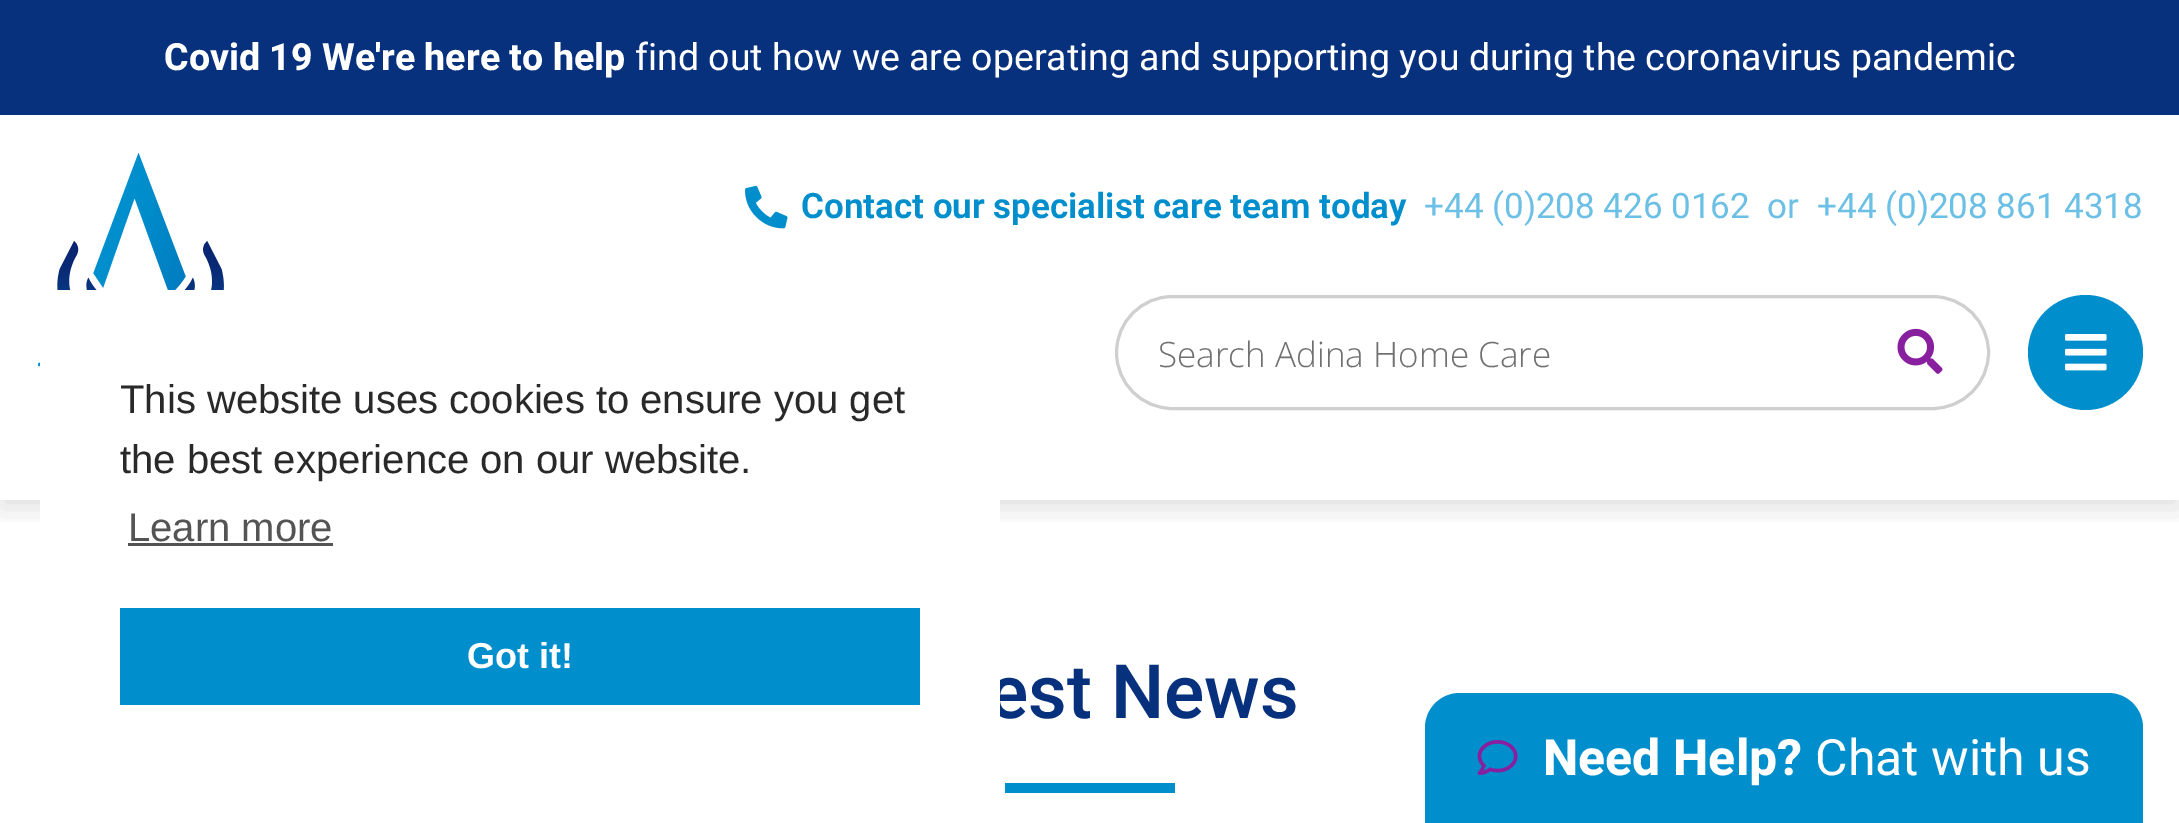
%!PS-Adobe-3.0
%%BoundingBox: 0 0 2179 823
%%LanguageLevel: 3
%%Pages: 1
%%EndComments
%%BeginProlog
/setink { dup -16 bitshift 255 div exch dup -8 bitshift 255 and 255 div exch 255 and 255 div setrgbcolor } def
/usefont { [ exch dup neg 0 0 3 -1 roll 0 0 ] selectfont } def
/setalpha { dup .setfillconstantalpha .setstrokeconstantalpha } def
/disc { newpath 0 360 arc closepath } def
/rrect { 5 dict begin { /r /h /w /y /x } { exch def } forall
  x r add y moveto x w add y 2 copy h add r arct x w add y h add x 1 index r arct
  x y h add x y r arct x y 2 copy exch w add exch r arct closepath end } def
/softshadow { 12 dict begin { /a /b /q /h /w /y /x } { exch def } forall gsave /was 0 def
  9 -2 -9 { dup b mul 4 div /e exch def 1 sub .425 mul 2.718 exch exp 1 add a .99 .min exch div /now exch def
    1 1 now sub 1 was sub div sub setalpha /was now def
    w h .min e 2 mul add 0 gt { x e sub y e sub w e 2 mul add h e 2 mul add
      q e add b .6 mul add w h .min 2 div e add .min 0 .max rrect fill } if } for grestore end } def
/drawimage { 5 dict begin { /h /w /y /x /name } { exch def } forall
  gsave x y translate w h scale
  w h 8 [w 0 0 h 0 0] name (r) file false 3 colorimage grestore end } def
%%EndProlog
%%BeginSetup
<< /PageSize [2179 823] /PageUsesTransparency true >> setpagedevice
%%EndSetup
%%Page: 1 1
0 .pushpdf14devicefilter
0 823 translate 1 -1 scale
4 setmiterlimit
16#FFFFFF setink
0 0 2179 823 rectfill
gsave
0 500 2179 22 rectclip
16#000000 setink
0 8 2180 500 0 15 0.12 softshadow
grestore
16#08317D setink
0 0 2179 115 rectfill
/Heebo-Bold 37.5 usefont
16#FFFFFF setink
164 70 moveto (Covid 19 We're here to help) show
/Heebo-Regular 37.5 usefont
635 70 moveto (find out how we are operating and supporting you during the coronavirus pandemic) show
(img1.raw) 38 153 186 214 drawimage
(img2.raw) 745 185 43 44 drawimage
/Heebo-SemiBold 35 usefont
16#008FCC setink
801 218 moveto (Contact our specialist care team today) show
/Heebo-Regular 35 usefont
16#6CBFE5 setink
[
    [(+44 \(0\)208 426 0162) 1424 218]
    [(or) 1767 218]
    [(+44 \(0\)208 861 4318) 1817 218]
] { aload pop moveto show } forall
16#CFCFCF setink
3 setlinewidth
1116.5 296.5 872 112 56 rrect stroke
/OpenSans-Light 35 usefont
16#707070 setink
1158 367 moveto (Search Adina Home Care) show
(img3.raw) 1897 328 46 46 drawimage
16#008FCC setink
2085.5 352.5 57.5 disc fill
(img4.raw) 2065 334 42 37 drawimage
/Heebo-Medium 75 usefont
16#08317D setink
988 718 moveto (est News) show
16#FFFFFF setink
40 290 960 427 rectfill
/LiberationSans-Regular 40 usefont
16#292929 setink
120 413 moveto (This website uses cookies to ensure you get) show
120 473 moveto (the best experience on our website.) show
16#545454 setink
128 541 moveto (Learn more) show
128 543 205 3 rectfill
16#008ECD setink
120 608 800 97 rectfill
/LiberationSans-Bold 36 usefont
16#FFFFFF setink
467 668 moveto (Got it!) show
16#008FCC setink
1005 783 170 10 rectfill
1460 693 moveto 2108 693 lineto 2127.5 693 2143 708.5 2143 728 curveto 2143 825 lineto 1425 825 lineto 1425 728 lineto 1425 708.5 1440.5 693 1460 693 curveto closepath fill
(img5.raw) 1477 740 41 35 drawimage
/Heebo-Bold 50 usefont
16#FFFFFF setink
1543 775 moveto (Need Help?) show
/Heebo-Regular 50 usefont
1815 775 moveto (Chat with us) show
.poppdf14devicefilter showpage
%%EOF
